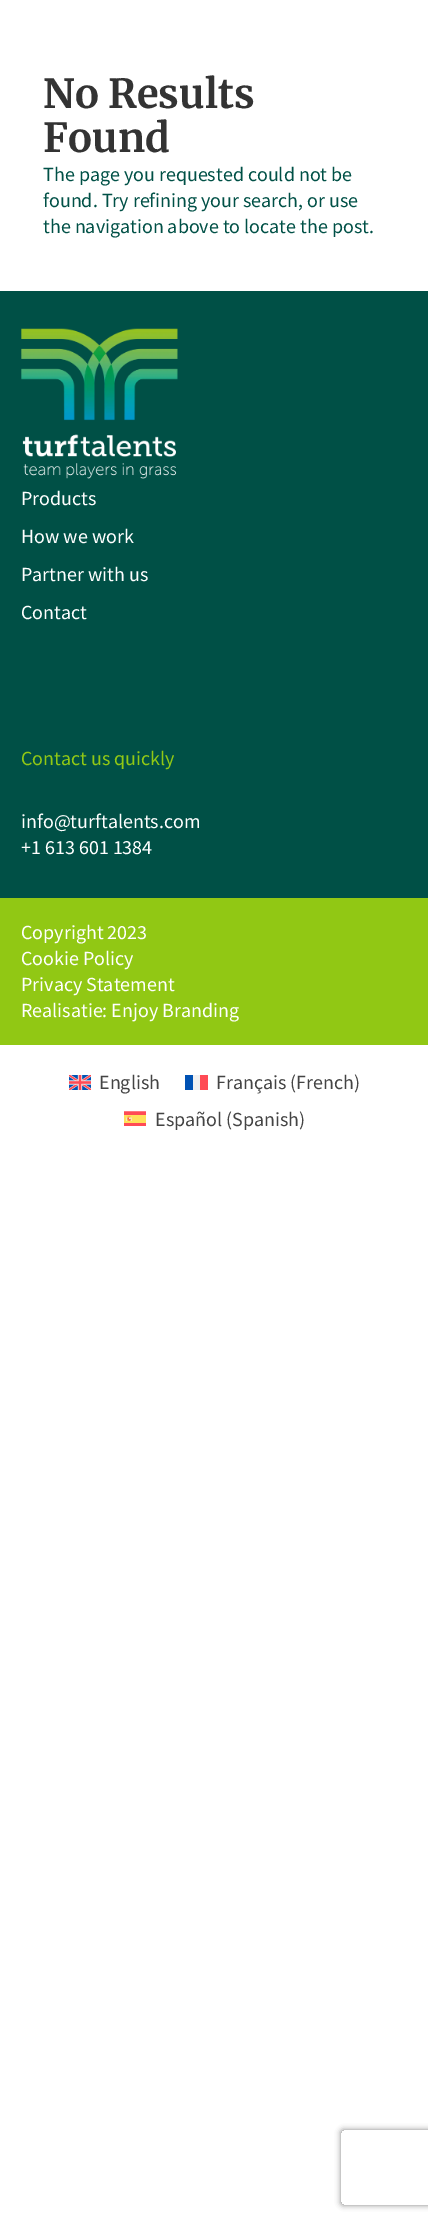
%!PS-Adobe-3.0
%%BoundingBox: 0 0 428 2222
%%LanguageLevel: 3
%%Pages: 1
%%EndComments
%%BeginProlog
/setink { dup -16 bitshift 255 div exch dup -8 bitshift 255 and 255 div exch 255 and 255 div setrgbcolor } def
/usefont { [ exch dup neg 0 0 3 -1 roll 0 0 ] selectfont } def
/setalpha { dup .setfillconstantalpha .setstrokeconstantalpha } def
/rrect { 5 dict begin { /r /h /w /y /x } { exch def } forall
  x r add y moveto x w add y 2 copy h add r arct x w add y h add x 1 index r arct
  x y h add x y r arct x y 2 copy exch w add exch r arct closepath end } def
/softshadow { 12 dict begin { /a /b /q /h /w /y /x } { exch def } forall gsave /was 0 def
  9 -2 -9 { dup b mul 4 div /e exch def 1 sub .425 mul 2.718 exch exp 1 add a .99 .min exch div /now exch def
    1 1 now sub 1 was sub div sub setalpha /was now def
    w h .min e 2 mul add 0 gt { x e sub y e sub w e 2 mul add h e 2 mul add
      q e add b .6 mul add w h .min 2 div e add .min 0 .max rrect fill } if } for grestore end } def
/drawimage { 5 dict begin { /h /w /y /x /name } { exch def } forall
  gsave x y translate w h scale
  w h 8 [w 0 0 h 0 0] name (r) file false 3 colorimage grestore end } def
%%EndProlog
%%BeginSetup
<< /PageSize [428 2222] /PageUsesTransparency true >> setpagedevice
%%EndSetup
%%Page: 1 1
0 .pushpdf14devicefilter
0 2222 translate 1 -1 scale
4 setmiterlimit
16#FFFFFF setink
0 0 428 2222 rectfill
/Merriweather-Bold 40 usefont
16#333333 setink
43 108 moveto (No Results) show
43 152 moveto (Found) show
/SourceSansPro-Regular 20 usefont
16#005046 setink
[
    [(The page you requested could not be) 43 181]
    [(found. Try refining your search, or use) 43 207]
    [(the navigation above to locate the post.) 43 233]
] { aload pop moveto show } forall
0 291 428 607 rectfill
(img1.raw) 21 328 157 151 drawimage
16#FFFFFF setink
[
    [(Products) 21 505]
    [(How we work) 21 543]
    [(Partner with us) 21 581]
    [(Contact) 21 619]
] { aload pop moveto show } forall
16#91C814 setink
21 765 moveto (Contact us quickly) show
16#FFFFFF setink
21 828 moveto (info@turftalents.com) show
21 854 moveto (+1 613 601 1384) show
16#91C814 setink
0 898 428 147 rectfill
16#FFFFFF setink
[
    [(Copyright 2023) 21 939]
    [(Cookie Policy) 21 965]
    [(Privacy Statement) 21 991]
    [(Realisatie: Enjoy Branding) 21 1017]
] { aload pop moveto show } forall
(img2.raw) 69 1075 22 15 drawimage
16#444444 setink
99 1089 moveto (English) show
[
    [185 1075 8 15 16#0052B4]
    [193 1075 7 15 16#F0F0F0]
    [200 1075 8 15 16#FF4B55]
] { aload pop setink rectfill } forall
16#444444 setink
216 1089 moveto (Français \(French\)) show
(img3.raw) 124 1111 22 15 drawimage
155 1126 moveto (Español \(Spanish\)) show
gsave
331 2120 moveto 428 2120 lineto 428 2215 lineto 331 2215 lineto closepath 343.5 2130 moveto 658.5 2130 lineto 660 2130 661 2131 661 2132.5 curveto 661 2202.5 lineto 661 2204 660 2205 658.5 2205 curveto 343.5 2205 lineto 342 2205 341 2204 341 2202.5 curveto 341 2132.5 lineto 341 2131 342 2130 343.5 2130 curveto closepath eoclip newpath
16#808080 setink
341 2130 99 75 2.5 3 1 softshadow
grestore
.poppdf14devicefilter showpage
%%EOF
